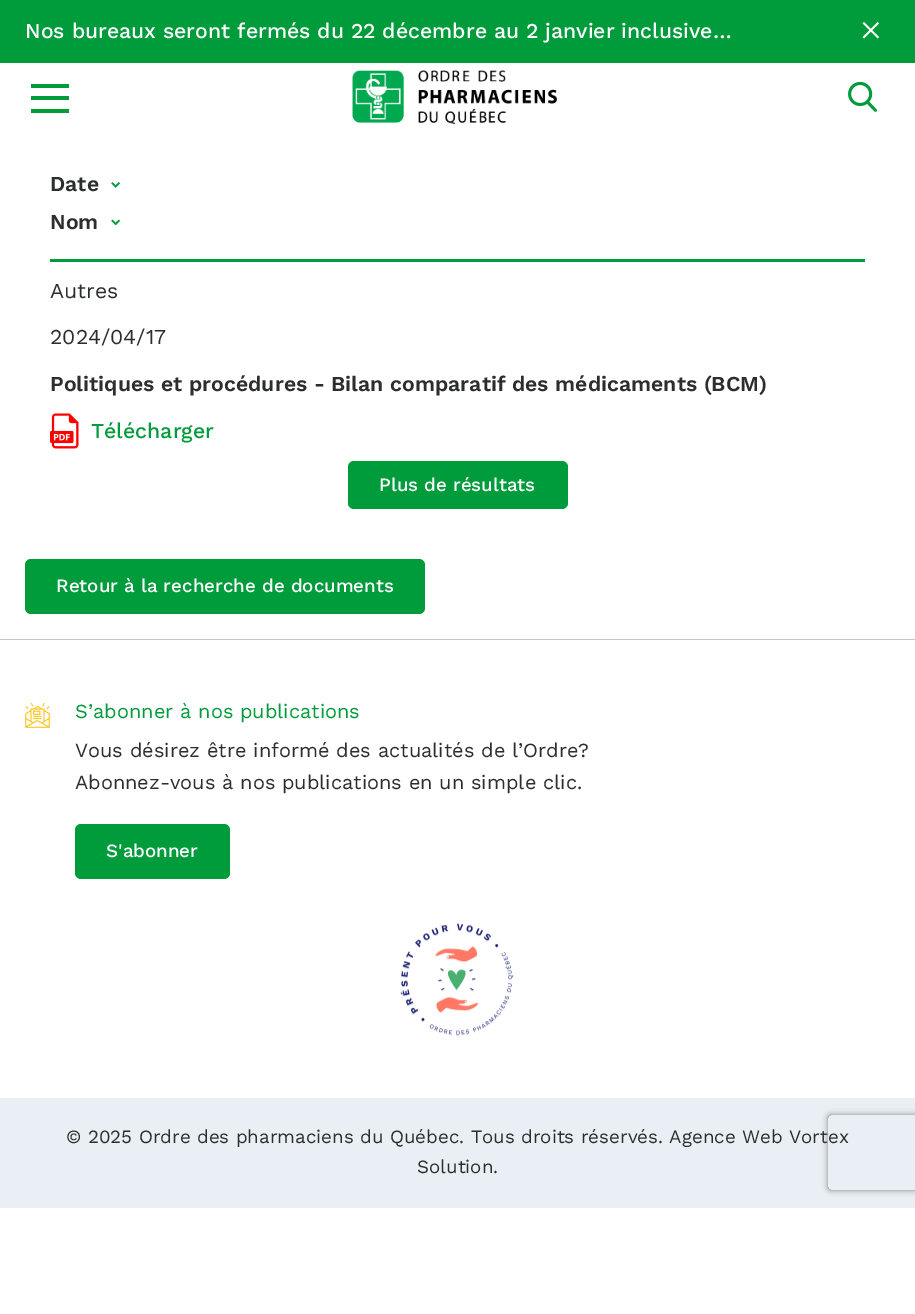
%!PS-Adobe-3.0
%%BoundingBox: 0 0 915 1314
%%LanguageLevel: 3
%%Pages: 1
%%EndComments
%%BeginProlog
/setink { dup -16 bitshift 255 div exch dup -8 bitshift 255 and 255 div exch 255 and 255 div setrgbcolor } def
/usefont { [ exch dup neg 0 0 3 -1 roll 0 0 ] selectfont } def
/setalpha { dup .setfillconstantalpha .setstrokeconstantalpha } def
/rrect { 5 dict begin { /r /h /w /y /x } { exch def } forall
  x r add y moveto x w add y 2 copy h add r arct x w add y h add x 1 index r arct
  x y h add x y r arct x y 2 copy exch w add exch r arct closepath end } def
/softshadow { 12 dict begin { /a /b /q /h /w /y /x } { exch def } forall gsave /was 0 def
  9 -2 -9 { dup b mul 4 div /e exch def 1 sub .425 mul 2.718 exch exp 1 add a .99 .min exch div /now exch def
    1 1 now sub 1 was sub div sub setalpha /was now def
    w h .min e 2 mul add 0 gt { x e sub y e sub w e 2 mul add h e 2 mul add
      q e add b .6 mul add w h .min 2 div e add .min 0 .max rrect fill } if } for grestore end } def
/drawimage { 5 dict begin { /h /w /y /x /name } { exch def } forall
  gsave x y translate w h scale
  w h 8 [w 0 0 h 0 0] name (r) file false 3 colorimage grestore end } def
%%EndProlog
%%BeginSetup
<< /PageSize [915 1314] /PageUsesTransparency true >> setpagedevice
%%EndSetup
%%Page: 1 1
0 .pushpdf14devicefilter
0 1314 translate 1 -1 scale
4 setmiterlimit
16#FFFFFF setink
0 0 915 1314 rectfill
16#009B3A setink
0 0 915 63 rectfill
/WorkSans-Medium 21.25 usefont
16#FFFFFF setink
25 38 moveto (Nos bureaux seront fermés du 22 décembre au 2 janvier inclusive…) show
(img1.raw) 862 22 18 17 drawimage
[
    [31 96 38 4 16#009B3A]
    [31 84 38 4 16#009B3A]
    [31 109 38 4 16#009B3A]
] { aload pop setink rectfill } forall
(img2.raw) 352 70 205 55 drawimage
(img3.raw) 848 81 29 31 drawimage
50 259 815 3 rectfill
/WorkSans-SemiBold 21.25 usefont
16#2B2F2C setink
50 191 moveto (Date) show
(img4.raw) 111 182 9 6 drawimage
50 229 moveto (Nom) show
(img5.raw) 111 219 9 7 drawimage
/WorkSans-Regular 21.25 usefont
50 298 moveto (Autres) show
50 344 moveto (2024/04/17) show
/WorkSans-SemiBold 21.25 usefont
50 391 moveto (Politiques et procédures - Bilan comparatif des médicaments \(BCM\)) show
(img6.raw) 50 413 29 36 drawimage
/WorkSans-Medium 21.25 usefont
16#009B3A setink
91 438 moveto (Télécharger) show
348 461 220 48 6 rrect fill
/WorkSans-Medium 18.75 usefont
16#FFFFFF setink
379 491 moveto (Plus de résultats) show
16#009B3A setink
25 559 400 55 6 rrect fill
16#FFFFFF setink
56 592 moveto (Retour à la recherche de documents) show
16#C6C6C6 setink
0 639 915 1 rectfill
(img7.raw) 25 702 25 26 drawimage
/WorkSans-Regular 20 usefont
16#009B3A setink
75 718 moveto (S’abonner à nos publications) show
16#2B2F2C setink
75 757 moveto (Vous désirez être informé des actualités de l’Ordre?) show
75 789 moveto (Abonnez-vous à nos publications en un simple clic.) show
16#009B3A setink
75 824 155 55 6 rrect fill
/WorkSans-Medium 18.75 usefont
16#FFFFFF setink
106 857 moveto (S'abonner) show
(img8.raw) 400 923 114 113 drawimage
16#E9EFF4 setink
0 1098 915 110 rectfill
/WorkSans-Regular 18.75 usefont
16#2B2F2C setink
66 1143 moveto (© 2025 Ordre des pharmaciens du Québec. Tous droits réservés. Agence Web Vortex) show
417 1173 moveto (Solution.) show
gsave
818 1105 moveto 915 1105 lineto 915 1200 lineto 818 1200 lineto closepath 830.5 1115 moveto 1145.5 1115 lineto 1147 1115 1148 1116 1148 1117.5 curveto 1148 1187.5 lineto 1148 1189 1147 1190 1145.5 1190 curveto 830.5 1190 lineto 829 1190 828 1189 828 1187.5 curveto 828 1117.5 lineto 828 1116 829 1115 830.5 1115 curveto closepath eoclip newpath
16#808080 setink
828 1115 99 75 2.5 3 1 softshadow
grestore
.poppdf14devicefilter showpage
%%EOF
